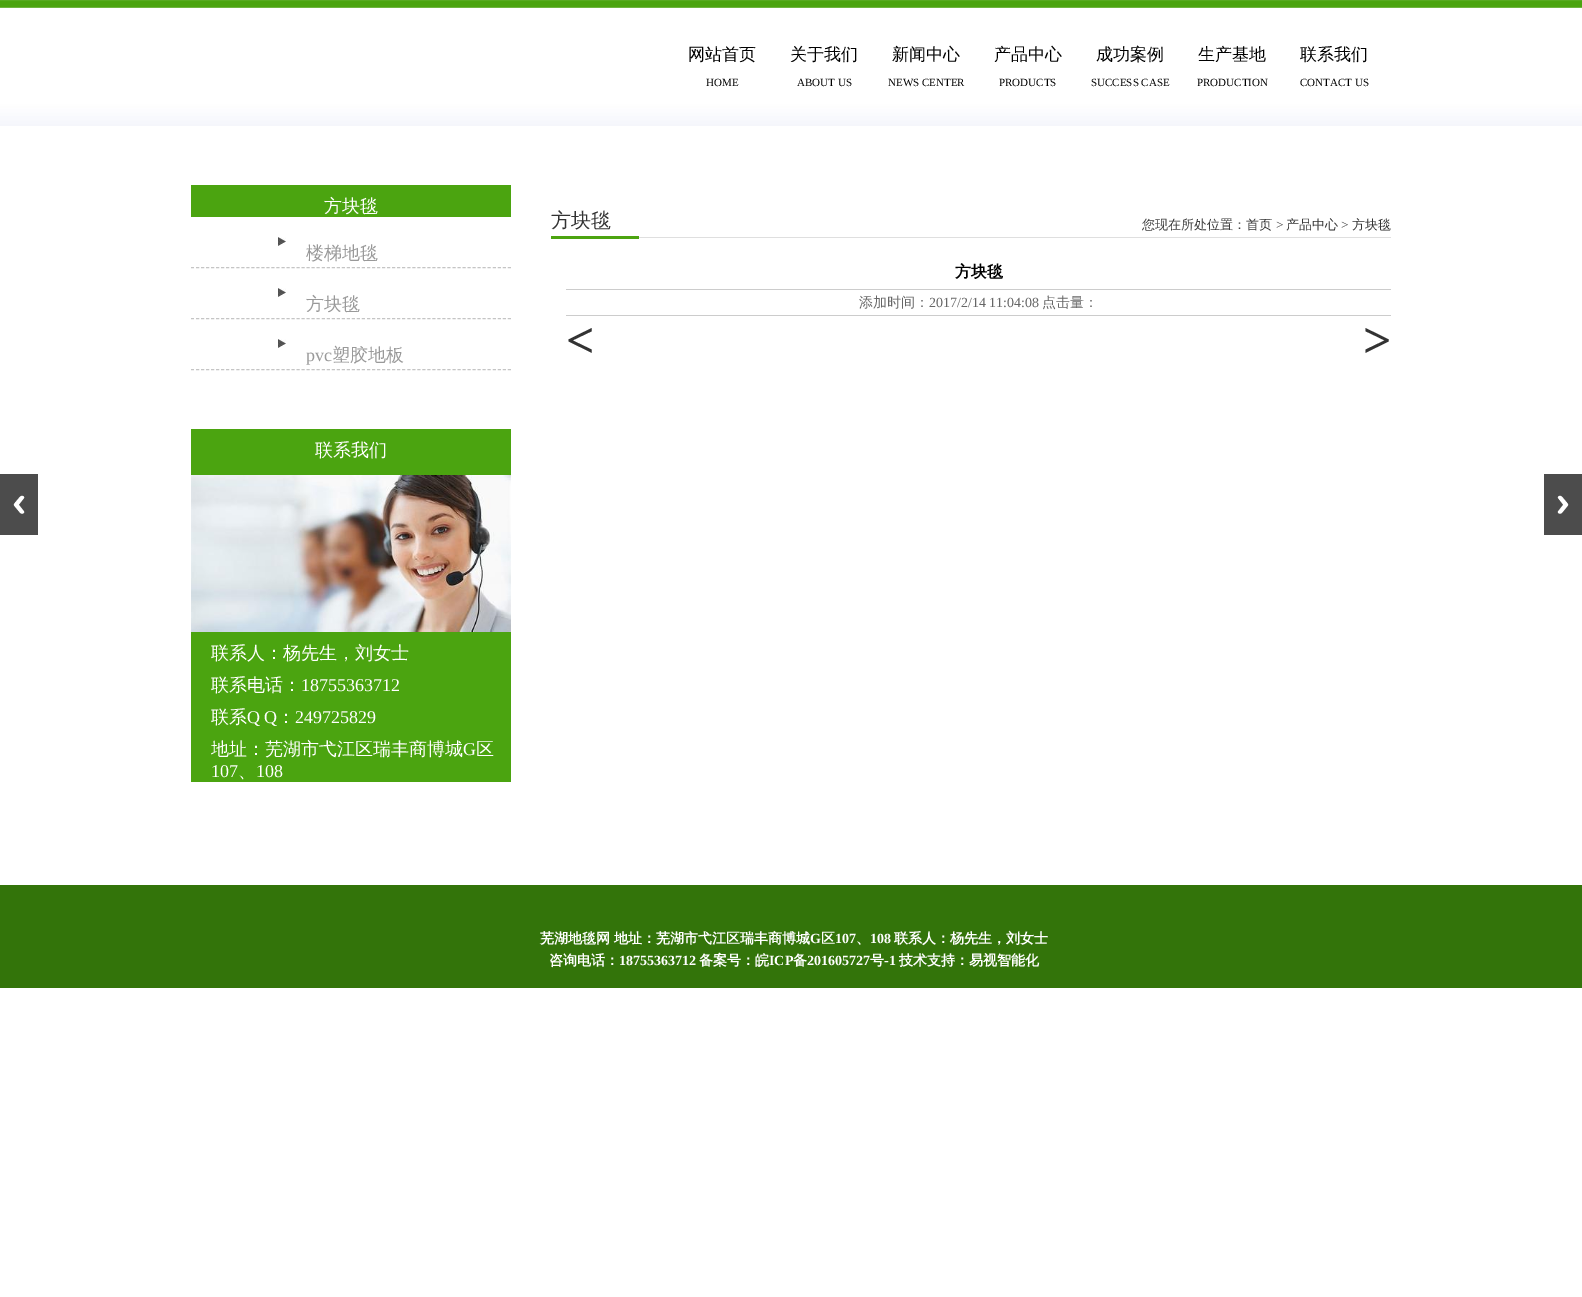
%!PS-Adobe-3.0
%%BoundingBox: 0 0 1582 1297
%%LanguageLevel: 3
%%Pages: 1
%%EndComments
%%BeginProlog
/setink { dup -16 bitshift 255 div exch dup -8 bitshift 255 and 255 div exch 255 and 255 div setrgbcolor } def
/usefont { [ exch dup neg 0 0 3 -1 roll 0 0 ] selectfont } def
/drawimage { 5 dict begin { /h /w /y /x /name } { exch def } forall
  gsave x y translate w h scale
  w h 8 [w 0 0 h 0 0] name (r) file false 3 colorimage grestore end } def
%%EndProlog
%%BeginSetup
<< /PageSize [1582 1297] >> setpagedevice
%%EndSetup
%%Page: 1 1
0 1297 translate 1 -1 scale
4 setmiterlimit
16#FFFFFF setink
0 0 1582 1297 rectfill
(img1.raw) 0 0 1582 126 drawimage
/WenQuanYiZenHei-Medium 17 usefont
16#000000 setink
688 60 moveto (网站首页) show
/LiberationSerif-Regular 11 usefont
706 86 moveto (HOME) show
/WenQuanYiZenHei-Medium 17 usefont
790 60 moveto (关于我们) show
/LiberationSerif-Regular 11 usefont
797 86 moveto (ABOUT US) show
/WenQuanYiZenHei-Medium 17 usefont
892 60 moveto (新闻中心) show
/LiberationSerif-Regular 11 usefont
888 86 moveto (NEWS CENTER) show
/WenQuanYiZenHei-Medium 17 usefont
994 60 moveto (产品中心) show
/LiberationSerif-Regular 11 usefont
999 86 moveto (PRODUCTS) show
/WenQuanYiZenHei-Medium 17 usefont
1096 60 moveto (成功案例) show
/LiberationSerif-Regular 11 usefont
1091 86 moveto (SUCCESS CASE) show
/WenQuanYiZenHei-Medium 17 usefont
1198 60 moveto (生产基地) show
/LiberationSerif-Regular 11 usefont
1197 86 moveto (PRODUCTION) show
/WenQuanYiZenHei-Medium 17 usefont
1300 60 moveto (联系我们) show
/LiberationSerif-Regular 11 usefont
1300 86 moveto (CONTACT US) show
16#4BA410 setink
191 185 320 32 rectfill
/WenQuanYiZenHei-Medium 18 usefont
16#FFFFFF setink
324 212 moveto (方块毯) show
16#C5C5C5 setink
[3 2.03] 0 setdash
191 267.5 moveto 511 267.5 lineto stroke
(img2.raw) 278 237 8 9 drawimage
16#999999 setink
306 259 moveto (楼梯地毯) show
16#C5C5C5 setink
191 318.5 moveto 511 318.5 lineto stroke
(img2.raw) 278 288 8 9 drawimage
16#999999 setink
306 310 moveto (方块毯) show
16#C5C5C5 setink
191 369.5 moveto 511 369.5 lineto stroke
(img2.raw) 278 339 8 9 drawimage
/LiberationSerif-Regular 18 usefont
16#999999 setink
306 361 moveto (pvc) show
/WenQuanYiZenHei-Medium 18 usefont
332 361 moveto (塑胶地板) show
16#4BA410 setink
191 429 320 353 rectfill
16#FFFFFF setink
315 456 moveto (联系我们) show
(img3.raw) 191 475 320 157 drawimage
211 659 moveto (联系人：杨先生，刘女士) show
211 691 moveto (联系电话：) show
/LiberationSerif-Regular 18 usefont
301 691 moveto (18755363712) show
/WenQuanYiZenHei-Medium 18 usefont
211 723 moveto (联系) show
/LiberationSerif-Regular 18 usefont
247 723 moveto (Q Q) show
/WenQuanYiZenHei-Medium 18 usefont
277 723 moveto (：) show
/LiberationSerif-Regular 18 usefont
295 723 moveto (249725829) show
/WenQuanYiZenHei-Medium 18 usefont
211 755 moveto (地址：芜湖市弋江区瑞丰商博城) show
/LiberationSerif-Regular 18 usefont
463 755 moveto (G) show
/WenQuanYiZenHei-Medium 18 usefont
476 755 moveto (区) show
/LiberationSerif-Regular 18 usefont
211 777 moveto (107) show
/WenQuanYiZenHei-Medium 18 usefont
238 777 moveto (、) show
/LiberationSerif-Regular 18 usefont
256 777 moveto (108) show
/WenQuanYiZenHei-Medium 20 usefont
16#333333 setink
551 227 moveto (方块毯) show
/WenQuanYiZenHei-Medium 13 usefont
16#3D3D3D setink
1142 229 moveto (您现在所处位置：) show
16#333333 setink
1246 229 moveto (首页) show
/LiberationSerif-Regular 13 usefont
16#3D3D3D setink
1276 229 moveto (>) show
/WenQuanYiZenHei-Medium 13 usefont
16#333333 setink
1286 229 moveto (产品中心) show
/LiberationSerif-Regular 13 usefont
16#3D3D3D setink
1341 229 moveto (>) show
/WenQuanYiZenHei-Medium 13 usefont
16#333333 setink
1352 229 moveto (方块毯) show
(img4.raw) 551 236 840 3 drawimage
/WenQuanYiZenHei-Bold 16 usefont
16#000000 setink
955 277 moveto (方块毯) show
16#CCCCCC setink
566 289 825 1 rectfill
566 315 825 1 rectfill
/WenQuanYiZenHei-Medium 14 usefont
16#666666 setink
859 307 moveto (添加时间：) show
/LiberationSerif-Regular 14 usefont
929 307 moveto (2017/2/14 11:04:08) show
/WenQuanYiZenHei-Medium 14 usefont
1042 307 moveto (点击量：) show
/LiberationSerif-Bold 50 usefont
16#333333 setink
566 357 moveto (<) show
1363 357 moveto (>) show
(img5.raw) 0 474 38 61 drawimage
(img6.raw) 1544 474 38 61 drawimage
16#33740A setink
0 885 1582 103 rectfill
/WenQuanYiZenHei-Bold 14 usefont
16#FFFFFF setink
540 943 moveto (芜湖地毯网 地址：芜湖市弋江区瑞丰商博城) show
/LiberationSerif-Bold 14 usefont
810 943 moveto (G) show
/WenQuanYiZenHei-Bold 14 usefont
821 943 moveto (区) show
/LiberationSerif-Bold 14 usefont
835 943 moveto (107) show
/WenQuanYiZenHei-Bold 14 usefont
856 943 moveto (、) show
/LiberationSerif-Bold 14 usefont
870 943 moveto (108) show
/WenQuanYiZenHei-Bold 14 usefont
894 943 moveto (联系人：杨先生，刘女士) show
549 965 moveto (咨询电话：) show
/LiberationSerif-Bold 14 usefont
619 965 moveto (18755363712) show
/WenQuanYiZenHei-Bold 14 usefont
699 965 moveto (备案号：皖) show
/LiberationSerif-Bold 14 usefont
769 965 moveto (ICP) show
/WenQuanYiZenHei-Bold 14 usefont
793 965 moveto (备) show
/LiberationSerif-Bold 14 usefont
807 965 moveto (201605727) show
/WenQuanYiZenHei-Bold 14 usefont
870 965 moveto (号) show
/LiberationSerif-Bold 14 usefont
884 965 moveto (-1) show
/WenQuanYiZenHei-Bold 14 usefont
899 965 moveto (技术支持：易视智能化) show
showpage
%%EOF
